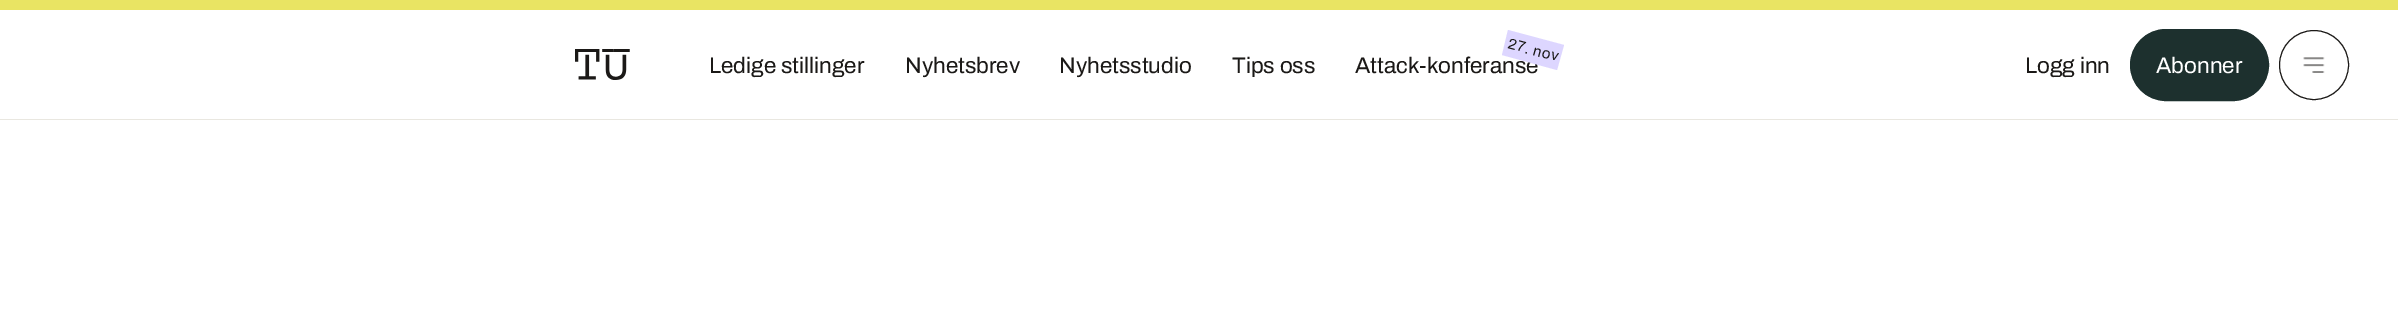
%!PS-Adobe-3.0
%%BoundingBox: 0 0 2398 316
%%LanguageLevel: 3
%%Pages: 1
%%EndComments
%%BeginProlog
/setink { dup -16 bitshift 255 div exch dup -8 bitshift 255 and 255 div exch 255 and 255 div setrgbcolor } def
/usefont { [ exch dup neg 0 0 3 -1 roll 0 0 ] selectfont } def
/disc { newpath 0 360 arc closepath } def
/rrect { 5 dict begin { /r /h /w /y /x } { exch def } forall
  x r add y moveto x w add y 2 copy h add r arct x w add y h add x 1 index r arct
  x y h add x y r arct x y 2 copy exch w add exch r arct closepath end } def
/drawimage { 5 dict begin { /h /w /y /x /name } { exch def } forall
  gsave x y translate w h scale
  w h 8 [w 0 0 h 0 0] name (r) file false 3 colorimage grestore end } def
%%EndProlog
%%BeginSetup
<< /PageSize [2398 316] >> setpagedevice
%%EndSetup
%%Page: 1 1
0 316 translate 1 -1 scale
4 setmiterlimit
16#FFFFFF setink
0 0 2398 316 rectfill
16#E9E463 setink
0 0 2398 10 rectfill
16#E9E7E0 setink
0 119 2398 1 rectfill
(img1.raw) 575 49 55 31 drawimage
/Archivo-Regular 22.5 usefont
16#1B1917 setink
[
    [(Ledige stillinger) 709 73]
    [(Nyhetsbrev) 905 73]
    [(Nyhetsstudio) 1059 73]
    [(Tips oss) 1232 73]
    [(Attack-konferanse) 1355 73]
] { aload pop moveto show } forall
16#DDD6FF setink
1508 30 moveto 1564 45 lineto 1557 70 lineto 1502 55 lineto closepath fill
/Archivo-Regular 15 usefont
16#1B1917 setink
gsave 1507 48 translate 15 rotate 0 0 moveto 0.5 0 (27. nov) ashow grestore
/Archivo-Regular 22.5 usefont
2025 73 moveto (Logg inn) show
16#1D302E setink
2130.5 29.5 138 71 35.5 rrect gsave fill grestore
stroke
16#FFFFFF setink
2156 73 moveto (Abonner) show
16#1B1917 setink
2314 65 34.5 disc stroke
(img2.raw) 2303 57 22 16 drawimage
showpage
%%EOF
